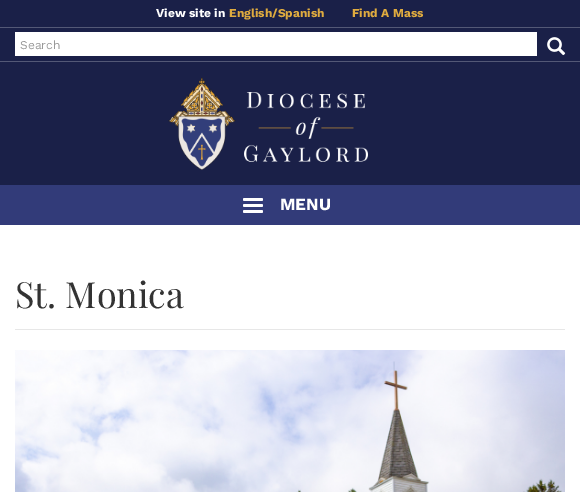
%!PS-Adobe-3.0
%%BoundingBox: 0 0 580 492
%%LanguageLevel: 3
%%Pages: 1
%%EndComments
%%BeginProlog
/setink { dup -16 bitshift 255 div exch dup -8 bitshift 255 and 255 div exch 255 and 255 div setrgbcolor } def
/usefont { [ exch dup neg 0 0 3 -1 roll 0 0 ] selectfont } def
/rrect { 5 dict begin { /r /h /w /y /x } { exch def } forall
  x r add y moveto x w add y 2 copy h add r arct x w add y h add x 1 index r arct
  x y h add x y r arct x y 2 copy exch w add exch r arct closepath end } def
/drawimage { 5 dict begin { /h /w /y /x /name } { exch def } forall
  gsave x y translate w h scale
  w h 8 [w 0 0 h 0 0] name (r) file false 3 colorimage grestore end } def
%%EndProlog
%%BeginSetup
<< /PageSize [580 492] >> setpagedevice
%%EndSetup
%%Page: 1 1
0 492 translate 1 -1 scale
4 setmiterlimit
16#FFFFFF setink
0 0 580 492 rectfill
[
    [0 0 580 61 16#1A2048]
    [0 61 580 1 16#535876]
    [0 27 580 1 16#535876]
] { aload pop setink rectfill } forall
/WorkSans-Bold 12 usefont
16#FFFFFF setink
156 17 moveto (View site in) show
16#DFAB3F setink
229 17 moveto (English/Spanish) show
352 17 moveto (Find A Mass) show
16#FFFFFF setink
15 32 522 24 rectfill
/WorkSans-Regular 12 usefont
16#999999 setink
20 49 moveto (Search) show
(img1.raw) 547 37 19 19 drawimage
16#1A2048 setink
0 62 580 123 rectfill
(img2.raw) 168 77 200 93 drawimage
16#323B79 setink
0 185 580 40 rectfill
16#FFFFFF setink
243 198 20 3 1.5 rrect fill
/WorkSans-Bold 17 usefont
280 210 moveto (MENU) show
243 204 20 3 1.5 rrect fill
243 210 20 3 1.5 rrect fill
16#E7E7E7 setink
15 329 550 1 rectfill
/PlayfairDisplay-Regular 36 usefont
16#333333 setink
15 308 moveto (St. Monica) show
(img3.raw) 15 350 550 142 drawimage
showpage
%%EOF
